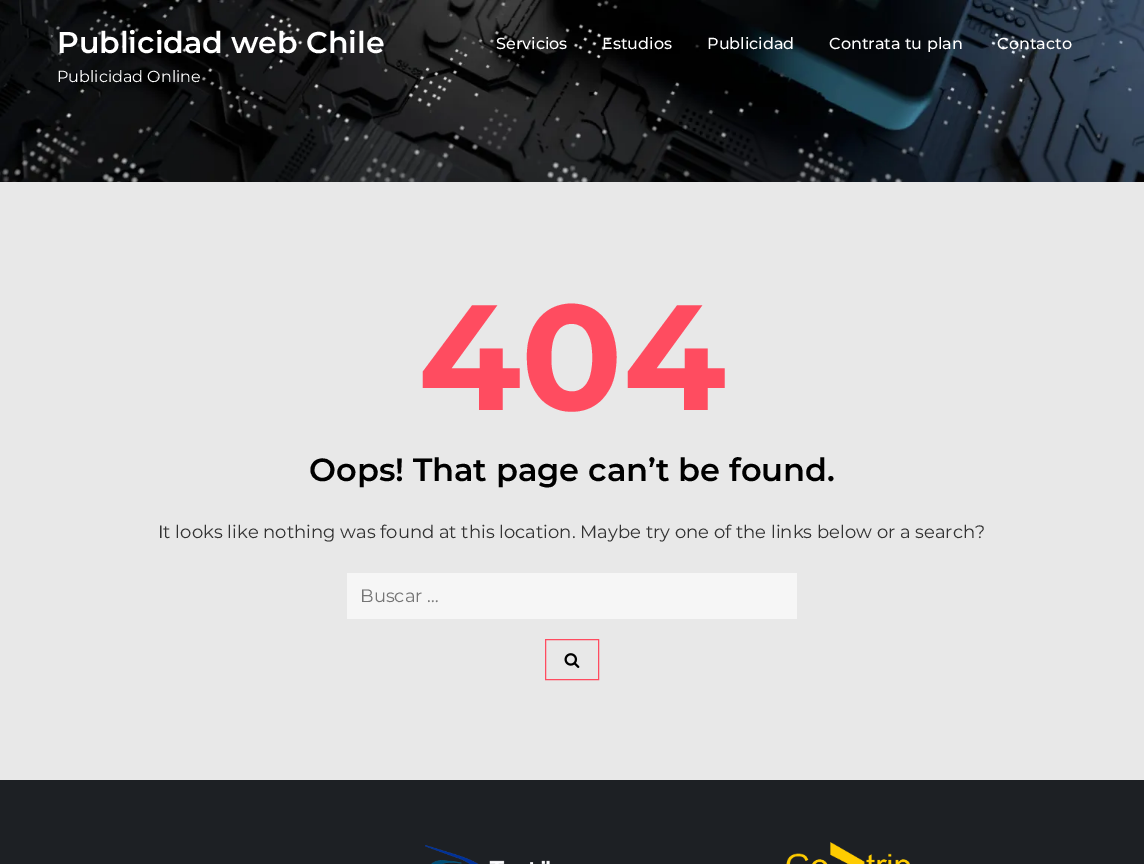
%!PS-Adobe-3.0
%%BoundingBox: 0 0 1144 864
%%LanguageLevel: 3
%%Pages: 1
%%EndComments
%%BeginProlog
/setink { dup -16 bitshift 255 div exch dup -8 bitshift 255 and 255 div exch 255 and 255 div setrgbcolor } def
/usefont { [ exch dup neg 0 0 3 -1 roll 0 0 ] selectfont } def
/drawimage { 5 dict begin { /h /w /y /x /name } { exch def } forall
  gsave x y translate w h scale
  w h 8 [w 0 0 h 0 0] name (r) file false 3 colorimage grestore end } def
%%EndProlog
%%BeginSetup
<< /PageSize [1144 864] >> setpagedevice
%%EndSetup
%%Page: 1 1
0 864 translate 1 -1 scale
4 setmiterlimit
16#E8E8E8 setink
0 0 1144 864 rectfill
(img1.raw) 0 0 1144 182 drawimage
/Montserrat-SemiBold 30 usefont
16#FFFFFF setink
57 53 moveto (Publicidad web Chile) show
/Montserrat-Regular 16 usefont
57 82 moveto (Publicidad Online) show
/Montserrat-Medium 16 usefont
[
    [(Servicios) 496 49]
    [(Estudios) 602 49]
    [(Publicidad) 707 49]
    [(Contrata tu plan) 829 49]
    [(Contacto) 997 49]
] { aload pop moveto show } forall
/Montserrat-Bold 150 usefont
16#FF4C60 setink
418 410 moveto (404) show
/Montserrat-SemiBold 32 usefont
16#000000 setink
309 481 moveto (Oops! That page can’t be found.) show
/Montserrat-Regular 18 usefont
16#333333 setink
158 538 moveto (It looks like nothing was found at this location. Maybe try one of the links below or a search?) show
16#F6F6F6 setink
347 573 450 46 rectfill
16#757575 setink
360 602 moveto (Buscar …) show
16#FF4C60 setink
545.5 639.5 53 40 rectstroke
(img2.raw) 564 653 16 15 drawimage
16#1D2024 setink
0 780 1144 84 rectfill
(img3.raw) 425 845 125 19 drawimage
(img4.raw) 786 842 124 22 drawimage
showpage
%%EOF
